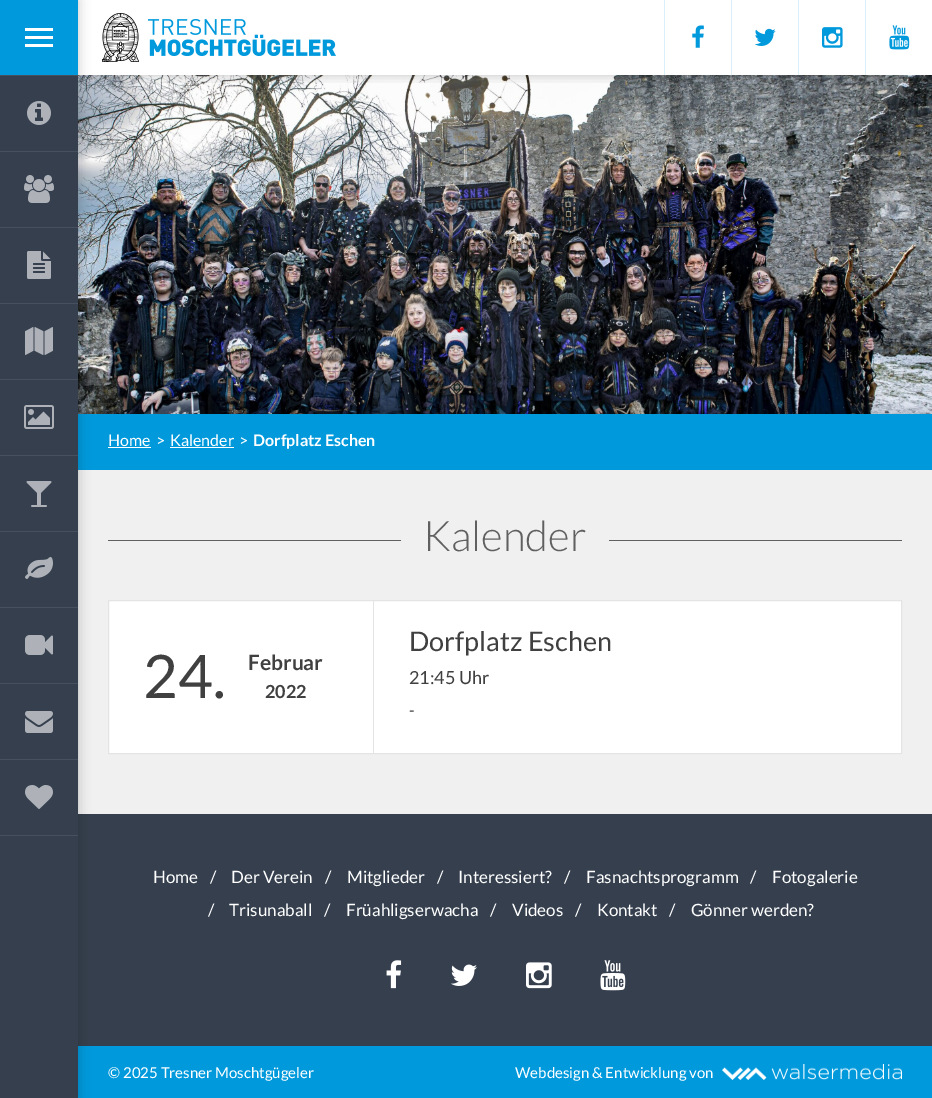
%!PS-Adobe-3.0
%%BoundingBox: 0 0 932 1098
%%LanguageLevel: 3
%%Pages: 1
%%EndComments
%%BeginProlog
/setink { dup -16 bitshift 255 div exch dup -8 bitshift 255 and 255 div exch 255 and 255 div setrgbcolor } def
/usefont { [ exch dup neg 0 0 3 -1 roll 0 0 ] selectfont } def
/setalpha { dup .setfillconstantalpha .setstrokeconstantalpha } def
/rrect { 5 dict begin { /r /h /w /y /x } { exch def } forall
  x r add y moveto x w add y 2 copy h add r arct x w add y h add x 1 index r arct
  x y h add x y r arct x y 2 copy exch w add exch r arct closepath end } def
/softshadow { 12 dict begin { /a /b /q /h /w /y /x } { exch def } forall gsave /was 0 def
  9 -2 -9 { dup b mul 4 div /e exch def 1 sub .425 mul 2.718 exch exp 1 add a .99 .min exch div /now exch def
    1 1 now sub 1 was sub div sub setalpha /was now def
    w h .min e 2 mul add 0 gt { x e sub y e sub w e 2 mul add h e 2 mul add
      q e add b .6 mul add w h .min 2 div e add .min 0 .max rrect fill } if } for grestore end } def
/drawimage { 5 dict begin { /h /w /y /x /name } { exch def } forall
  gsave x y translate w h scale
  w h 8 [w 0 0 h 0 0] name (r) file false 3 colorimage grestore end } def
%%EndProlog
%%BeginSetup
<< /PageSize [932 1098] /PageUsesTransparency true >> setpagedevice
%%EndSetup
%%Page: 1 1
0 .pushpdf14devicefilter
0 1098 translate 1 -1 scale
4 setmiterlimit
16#F0F0F0 setink
0 0 932 1098 rectfill
16#FFFFFF setink
78 0 854 75 rectfill
(img16.raw) 78 75 854 339 drawimage
gsave
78 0 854 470 rectclip
16#000000 setink
78 414 854 56 0 6 0.22 softshadow
grestore
[
    [78 414 854 56 16#0099DC]
    [78 814 854 232 16#353F4E]
    [78 1046 854 52 16#0099DC]
] { aload pop setink rectfill } forall
16#000000 setink
0 0 78 1098 0 6 0.22 softshadow
gsave
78 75 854 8 rectclip
78 0 854 75 0 6 0.22 softshadow
grestore
[
    [0 76 78 1022 16#353F4E]
    [0 0 78 75 16#0099DC]
    [25 28 28 3 16#FFFFFF]
    [25 36 28 3 16#FFFFFF]
    [25 44 28 3 16#FFFFFF]
    [0 75 78 1 16#47505E]
    [0 151 78 1 16#47505E]
] { aload pop setink rectfill } forall
(img1.raw) 27 101 24 24 drawimage
0 227 78 1 rectfill
(img2.raw) 24 175 30 28 drawimage
0 303 78 1 rectfill
(img3.raw) 27 251 24 28 drawimage
0 379 78 1 rectfill
(img4.raw) 25 327 28 28 drawimage
0 455 78 1 rectfill
(img5.raw) 24 405 30 24 drawimage
0 531 78 1 rectfill
(img6.raw) 26 481 26 26 drawimage
0 607 78 1 rectfill
(img7.raw) 25 557 28 22 drawimage
0 683 78 1 rectfill
(img8.raw) 25 635 28 20 drawimage
0 759 78 1 rectfill
(img9.raw) 25 711 28 22 drawimage
0 835 78 1 rectfill
(img10.raw) 25 785 28 24 drawimage
(img11.raw) 102 13 234 49 drawimage
16#D9F0FA setink
664 0 1 75 rectfill
(img12.raw) 692 25 12 23 drawimage
731 0 1 75 rectfill
(img13.raw) 754 28 22 18 drawimage
798 0 1 75 rectfill
(img14.raw) 822 27 21 21 drawimage
865 0 1 75 rectfill
(img15.raw) 889 25 21 25 drawimage
/Lato-Regular 16 usefont
16#FFFFFF setink
108 446 moveto (Home) show
108 447 43 1 rectfill
156 446 moveto (>) show
170 446 moveto (Kalender) show
170 447 64 1 rectfill
239 446 moveto (>) show
/Lato-Bold 16 usefont
253 446 moveto (Dorfplatz Eschen) show
16#606060 setink
108 540 794 1 rectfill
16#F0F0F0 setink
401 540 208 1 rectfill
/Lato-Light 42 usefont
16#606060 setink
423 551 moveto (Kalender) show
16#FFFFFF setink
108.5 600.5 moveto 901.5 600.5 lineto 901.5 753.5 lineto 108.5 753.5 lineto closepath gsave fill grestore
16#E4E4E4 setink
stroke
/Lato-Regular 27 usefont
16#404040 setink
409 651 moveto (Dorfplatz Eschen) show
16#E4E4E4 setink
373 601 1 152 rectfill
/Lato-Regular 60 usefont
16#404040 setink
143 698 moveto (24.) show
/Lato-Bold 21 usefont
248 670 moveto (Februar) show
/Lato-Bold 18 usefont
265 698 moveto (2022) show
/Lato-Regular 18 usefont
409 684 moveto (21:45 Uhr) show
/Lato-Regular 16 usefont
409 716 moveto (-) show
/Lato-Regular 17 usefont
16#FFFFFF setink
[
    [(Home) 153 883]
    [(/) 210 883]
    [(Der Verein) 231 883]
    [(/) 325 883]
    [(Mitglieder) 347 883]
    [(/) 437 883]
    [(Interessiert?) 458 883]
    [(/) 564 883]
    [(Fasnachtsprogramm) 586 883]
    [(/) 750 883]
    [(Fotogalerie) 772 883]
    [(/) 208 916]
    [(Trisunaball) 229 916]
    [(/) 324 916]
    [(Früahligserwacha) 346 916]
    [(/) 490 916]
    [(Videos) 512 916]
    [(/) 575 916]
    [(Kontakt) 597 916]
    [(/) 669 916]
    [(Gönner werden?) 691 916]
] { aload pop moveto show } forall
(img17.raw) 386 960 16 29 drawimage
(img18.raw) 451 964 26 22 drawimage
(img19.raw) 526 962 26 27 drawimage
(img20.raw) 600 960 26 31 drawimage
/Lato-Regular 15 usefont
108 1078 moveto (© 2025 Tresner Moschtgügeler) show
515 1078 moveto (Webdesign & Entwicklung von) show
(img21.raw) 722 1064 180 16 drawimage
.poppdf14devicefilter showpage
%%EOF
